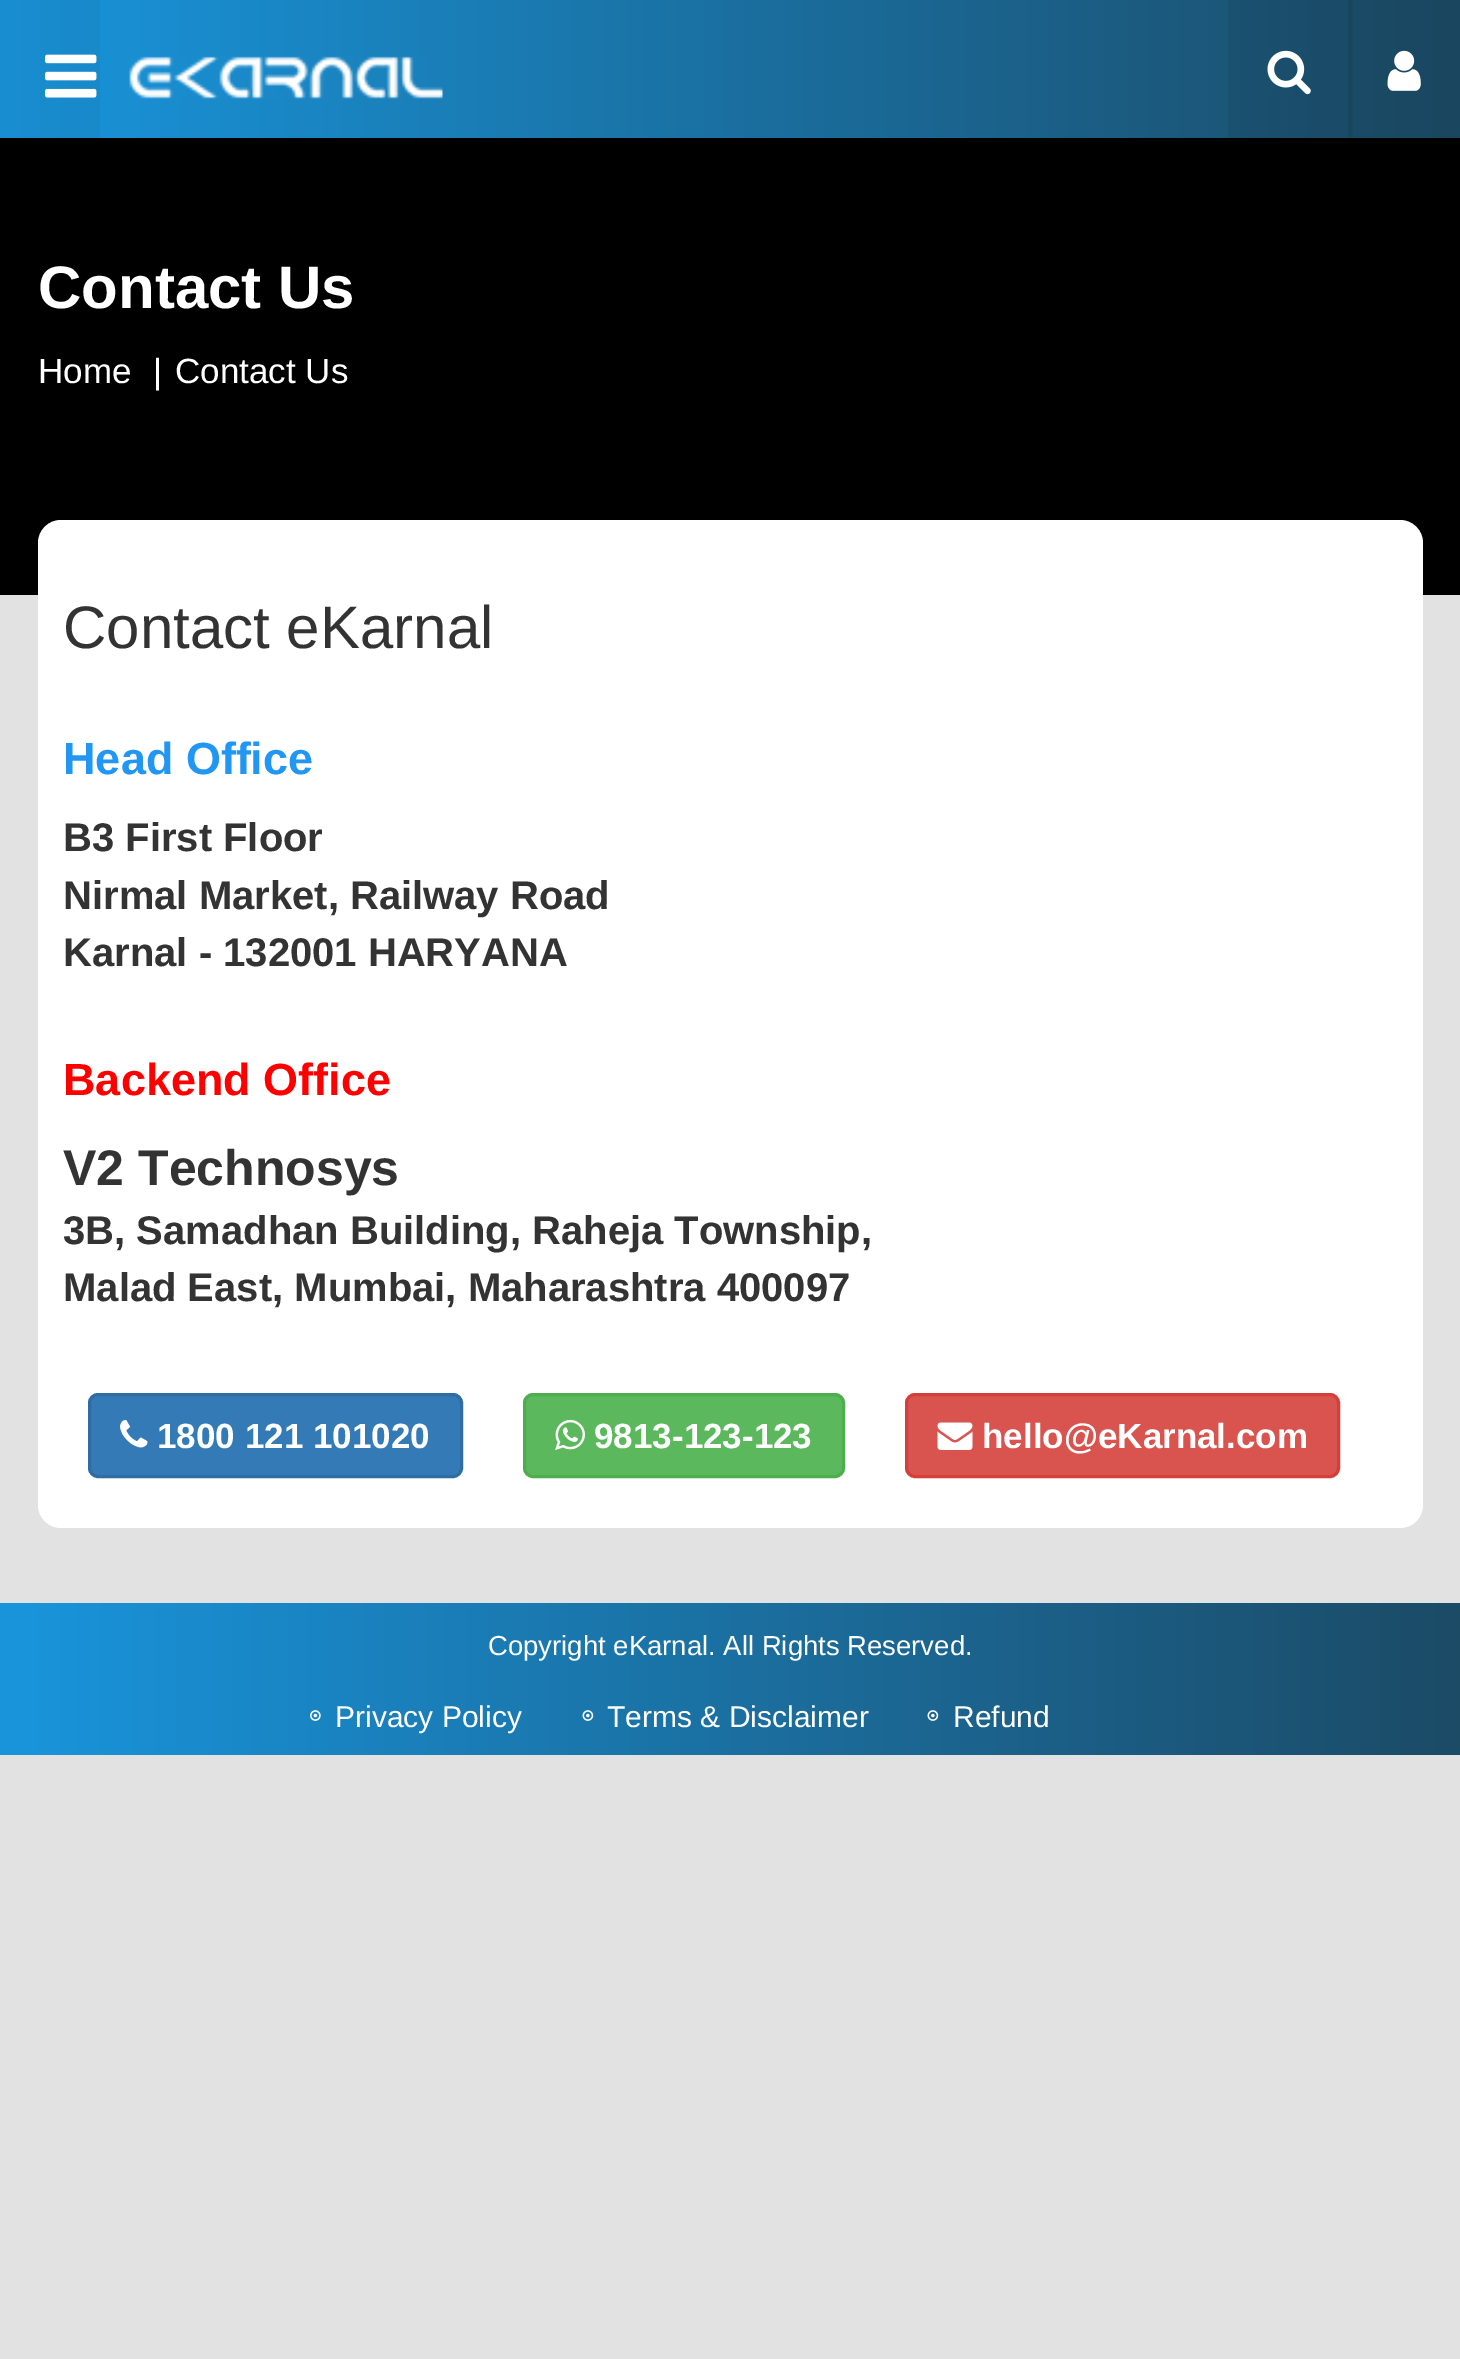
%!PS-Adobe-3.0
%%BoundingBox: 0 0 1460 2359
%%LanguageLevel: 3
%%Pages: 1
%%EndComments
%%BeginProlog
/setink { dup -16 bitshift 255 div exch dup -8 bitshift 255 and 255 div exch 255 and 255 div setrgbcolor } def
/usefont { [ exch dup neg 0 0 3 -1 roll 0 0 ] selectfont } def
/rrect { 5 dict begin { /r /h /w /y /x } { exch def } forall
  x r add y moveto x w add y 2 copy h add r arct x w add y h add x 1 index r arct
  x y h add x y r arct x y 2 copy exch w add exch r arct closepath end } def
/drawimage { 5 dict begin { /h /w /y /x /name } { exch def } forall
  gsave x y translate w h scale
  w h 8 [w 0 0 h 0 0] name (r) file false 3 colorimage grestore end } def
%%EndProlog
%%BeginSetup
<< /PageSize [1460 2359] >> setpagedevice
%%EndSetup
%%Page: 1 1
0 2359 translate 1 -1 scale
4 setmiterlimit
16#E2E2E2 setink
0 0 1460 2359 rectfill
gsave 100 0 moveto 1228 0 lineto 1228 138 lineto 100 138 lineto closepath clip newpath
<< /ShadingType 2 /ColorSpace /DeviceRGB /Coords [0 69 1460 69] /Extend [true true] /Function << /FunctionType 2 /Domain [0 1] /C0 [0.098 0.584 0.863] /C1 [0.11 0.294 0.4] /N 1 >> >> shfill grestore
gsave 0 0 moveto 100 0 lineto 100 138 lineto 0 138 lineto closepath clip newpath
<< /ShadingType 2 /ColorSpace /DeviceRGB /Coords [0 69 1460 69] /Extend [true true] /Function << /FunctionType 2 /Domain [0 1] /C0 [0.094 0.557 0.82] /C1 [0.106 0.278 0.38] /N 1 >> >> shfill grestore
gsave 1353 0 moveto 1460 0 lineto 1460 138 lineto 1353 138 lineto closepath clip newpath
<< /ShadingType 2 /ColorSpace /DeviceRGB /Coords [0 69 1460 69] /Extend [true true] /Function << /FunctionType 2 /Domain [0 1] /C0 [0.09 0.545 0.804] /C1 [0.102 0.275 0.373] /N 1 >> >> shfill grestore
gsave 1228 0 moveto 1348 0 lineto 1348 138 lineto 1228 138 lineto closepath clip newpath
<< /ShadingType 2 /ColorSpace /DeviceRGB /Coords [0 69 1460 69] /Extend [true true] /Function << /FunctionType 2 /Domain [0 1] /C0 [0.09 0.545 0.804] /C1 [0.102 0.275 0.373] /N 1 >> >> shfill grestore
gsave 1348 0 moveto 1353 0 lineto 1353 138 lineto 1348 138 lineto closepath clip newpath
<< /ShadingType 2 /ColorSpace /DeviceRGB /Coords [0 69 1460 69] /Extend [true true] /Function << /FunctionType 2 /Domain [0 1] /C0 [0.082 0.506 0.749] /C1 [0.094 0.255 0.345] /N 1 >> >> shfill grestore
(img1.raw) 45 54 52 44 drawimage
(img2.raw) 129 56 314 43 drawimage
(img3.raw) 1267 50 44 45 drawimage
(img4.raw) 1387 50 34 41 drawimage
16#000000 setink
0 138 1460 457 rectfill
/LiberationSans-Bold 60 usefont
16#FFFFFF setink
38 308 moveto (Contact Us) show
/LiberationSans-Regular 35 usefont
[
    [(Home) 38 383]
    [(|) 153 383]
    [(Contact Us) 175 383]
] { aload pop moveto show } forall
38 520 1385 1008 23 rrect fill
/LiberationSans-Regular 60 usefont
16#333333 setink
63 648 moveto (Contact eKarnal) show
/LiberationSans-Bold 45 usefont
16#2196F3 setink
63 774 moveto (Head Office) show
/LiberationSans-Bold 40 usefont
16#333333 setink
[
    [(B3 First Floor) 63 851]
    [(Nirmal Market, Railway Road) 63 909]
    [(Karnal - 132001 HARYANA) 63 966]
] { aload pop moveto show } forall
/LiberationSans-Bold 45 usefont
16#FF0000 setink
63 1095 moveto (Backend Office) show
/LiberationSans-Bold 50 usefont
16#333333 setink
63 1185 moveto (V2 Technosys) show
/LiberationSans-Bold 40 usefont
63 1244 moveto (3B, Samadhan Building, Raheja Township,) show
63 1301 moveto (Malad East, Mumbai, Maharashtra 400097) show
16#337AB7 setink
89.5 1394.5 372 82 8.5 rrect gsave fill grestore
16#2E6DA4 setink
3 setlinewidth
stroke
(img5.raw) 120 1420 28 28 drawimage
/LiberationSans-Bold 35 usefont
16#FFFFFF setink
157 1448 moveto (1800 121 101020) show
16#5CB85C setink
524.5 1394.5 319 82 8.5 rrect gsave fill grestore
16#4CAE4C setink
stroke
(img6.raw) 555 1419 30 31 drawimage
16#FFFFFF setink
594 1448 moveto (9813-123-123) show
16#D9534F setink
906.5 1394.5 432 82 8.5 rrect gsave fill grestore
16#D43F3A setink
stroke
(img7.raw) 937 1422 36 28 drawimage
16#FFFFFF setink
982 1448 moveto (hello@eKarnal.com) show
gsave 0 1603 moveto 1460 1603 lineto 1460 1755 lineto 0 1755 lineto closepath clip newpath
<< /ShadingType 2 /ColorSpace /DeviceRGB /Coords [0 1679 1460 1679] /Extend [true true] /Function << /FunctionType 2 /Domain [0 1] /C0 [0.098 0.584 0.863] /C1 [0.11 0.294 0.4] /N 1 >> >> shfill grestore
/LiberationSans-Regular 27.5 usefont
488 1655 moveto (Copyright eKarnal. All Rights Reserved.) show
(img8.raw) 310 1710 11 11 drawimage
/LiberationSans-Regular 30 usefont
335 1727 moveto (Privacy Policy) show
(img9.raw) 582 1710 12 11 drawimage
607 1727 moveto (Terms & Disclaimer) show
(img10.raw) 927 1710 12 11 drawimage
953 1727 moveto (Refund) show
showpage
%%EOF
